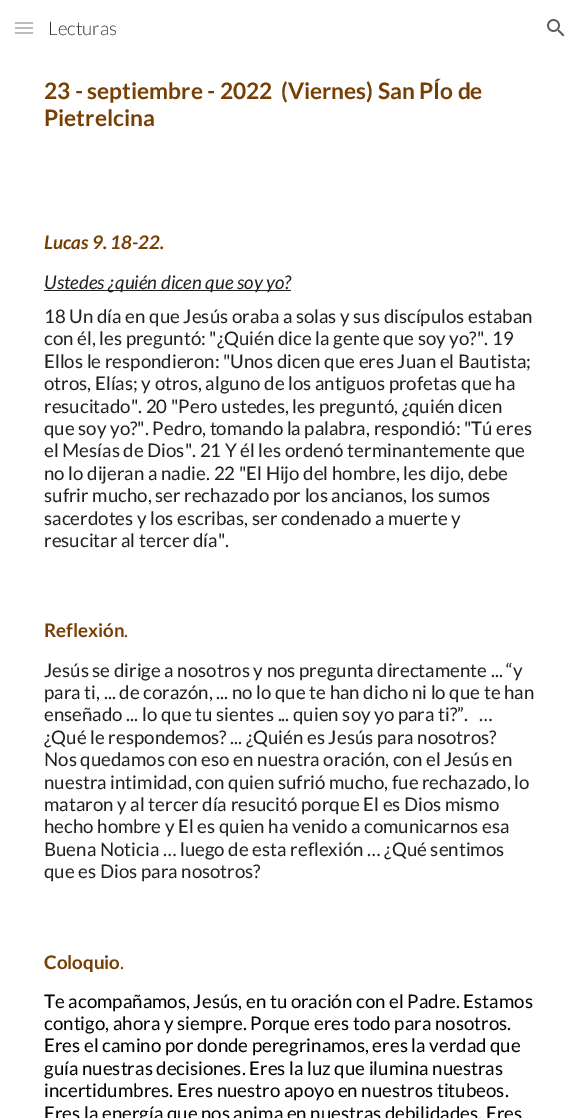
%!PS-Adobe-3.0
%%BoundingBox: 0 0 580 1118
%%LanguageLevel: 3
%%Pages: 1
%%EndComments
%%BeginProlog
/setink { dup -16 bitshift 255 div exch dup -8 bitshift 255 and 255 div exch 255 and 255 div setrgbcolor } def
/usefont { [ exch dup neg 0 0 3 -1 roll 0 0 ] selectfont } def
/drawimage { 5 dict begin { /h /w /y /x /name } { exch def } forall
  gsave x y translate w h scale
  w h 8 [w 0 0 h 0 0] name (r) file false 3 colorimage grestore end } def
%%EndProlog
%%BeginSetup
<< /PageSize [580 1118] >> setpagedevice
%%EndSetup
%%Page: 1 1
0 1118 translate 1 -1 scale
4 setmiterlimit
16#FFFFFF setink
0 0 580 1118 rectfill
[
    [15 22 18 2 16#BBBBBB]
    [15 27 18 2 16#BBBBBB]
    [15 32 18 2 16#BBBBBB]
] { aload pop setink rectfill } forall
/Lato-Light 18.7 usefont
16#333333 setink
48 35 moveto (Lecturas) show
(img1.raw) 547 19 18 18 drawimage
/Lato-Bold 22.7 usefont
16#783F04 setink
44 99 moveto (23 - septiembre - 2022  \(Viernes\) San PÍo de) show
44 126 moveto (Pietrelcina) show
/Lato-BoldItalic 18.7 usefont
44 249 moveto (Lucas 9. 18-22.) show
16#212121 setink
44 290 247 1 rectfill
/Lato-Italic 18.7 usefont
44 289 moveto (Ustedes ¿quién dicen que soy yo?) show
/Lato-Regular 18.7 usefont
[
    [(18 Un día en que Jesús oraba a solas y sus discípulos estaban) 44 323]
    [(con él, les preguntó: "¿Quién dice la gente que soy yo?". 19) 44 345]
    [(Ellos le respondieron: "Unos dicen que eres Juan el Bautista;) 44 368]
    [(otros, Elías; y otros, alguno de los antiguos profetas que ha) 44 390]
    [(resucitado". 20 "Pero ustedes, les preguntó, ¿quién dicen) 44 413]
    [(que soy yo?". Pedro, tomando la palabra, respondió: "Tú eres) 44 435]
    [(el Mesías de Dios". 21 Y él les ordenó terminantemente que) 44 457]
    [(no lo dijeran a nadie. 22 "El Hijo del hombre, les dijo, debe) 44 480]
    [(sufrir mucho, ser rechazado por los ancianos, los sumos) 44 502]
    [(sacerdotes y los escribas, ser condenado a muerte y) 44 525]
    [(resucitar al tercer día".) 44 547]
] { aload pop moveto show } forall
/Lato-Bold 18.7 usefont
16#783F04 setink
44 637 moveto (Reflexión) show
/Lato-Regular 18.7 usefont
124 637 moveto (.) show
16#212121 setink
[
    [(Jesús se dirige a nosotros y nos pregunta directamente ... “y) 44 677]
    [(para ti, ... de corazón, ... no lo que te han dicho ni lo que te han) 44 699]
    [(enseñado ... lo que tu sientes ... quien soy yo para ti?”.   …) 44 721]
    [(¿Qué le respondemos? ... ¿Quién es Jesús para nosotros?) 44 744]
    [(Nos quedamos con eso en nuestra oración, con el Jesús en) 44 766]
    [(nuestra intimidad, con quien sufrió mucho, fue rechazado, lo) 44 789]
    [(mataron y al tercer día resucitó porque El es Dios mismo) 44 811]
    [(hecho hombre y El es quien ha venido a comunicarnos esa) 44 833]
    [(Buena Noticia … luego de esta reflexión … ¿Qué sentimos) 44 856]
    [(que es Dios para nosotros?) 44 878]
] { aload pop moveto show } forall
/Lato-Bold 18.7 usefont
16#783F04 setink
44 969 moveto (Coloquio) show
/Lato-Regular 18.7 usefont
120 969 moveto (.) show
16#000000 setink
[
    [(Te acompañamos, Jesús, en tu oración con el Padre. Estamos) 44 1008]
    [(contigo, ahora y siempre. Porque eres todo para nosotros.) 44 1030]
    [(Eres el camino por donde peregrinamos, eres la verdad que) 44 1052]
    [(guía nuestras decisiones. Eres la luz que ilumina nuestras) 44 1075]
    [(incertidumbres. Eres nuestro apoyo en nuestros titubeos.) 44 1097]
    [(Eres la energía que nos anima en nuestras debilidades. Eres) 44 1120]
] { aload pop moveto show } forall
showpage
%%EOF
